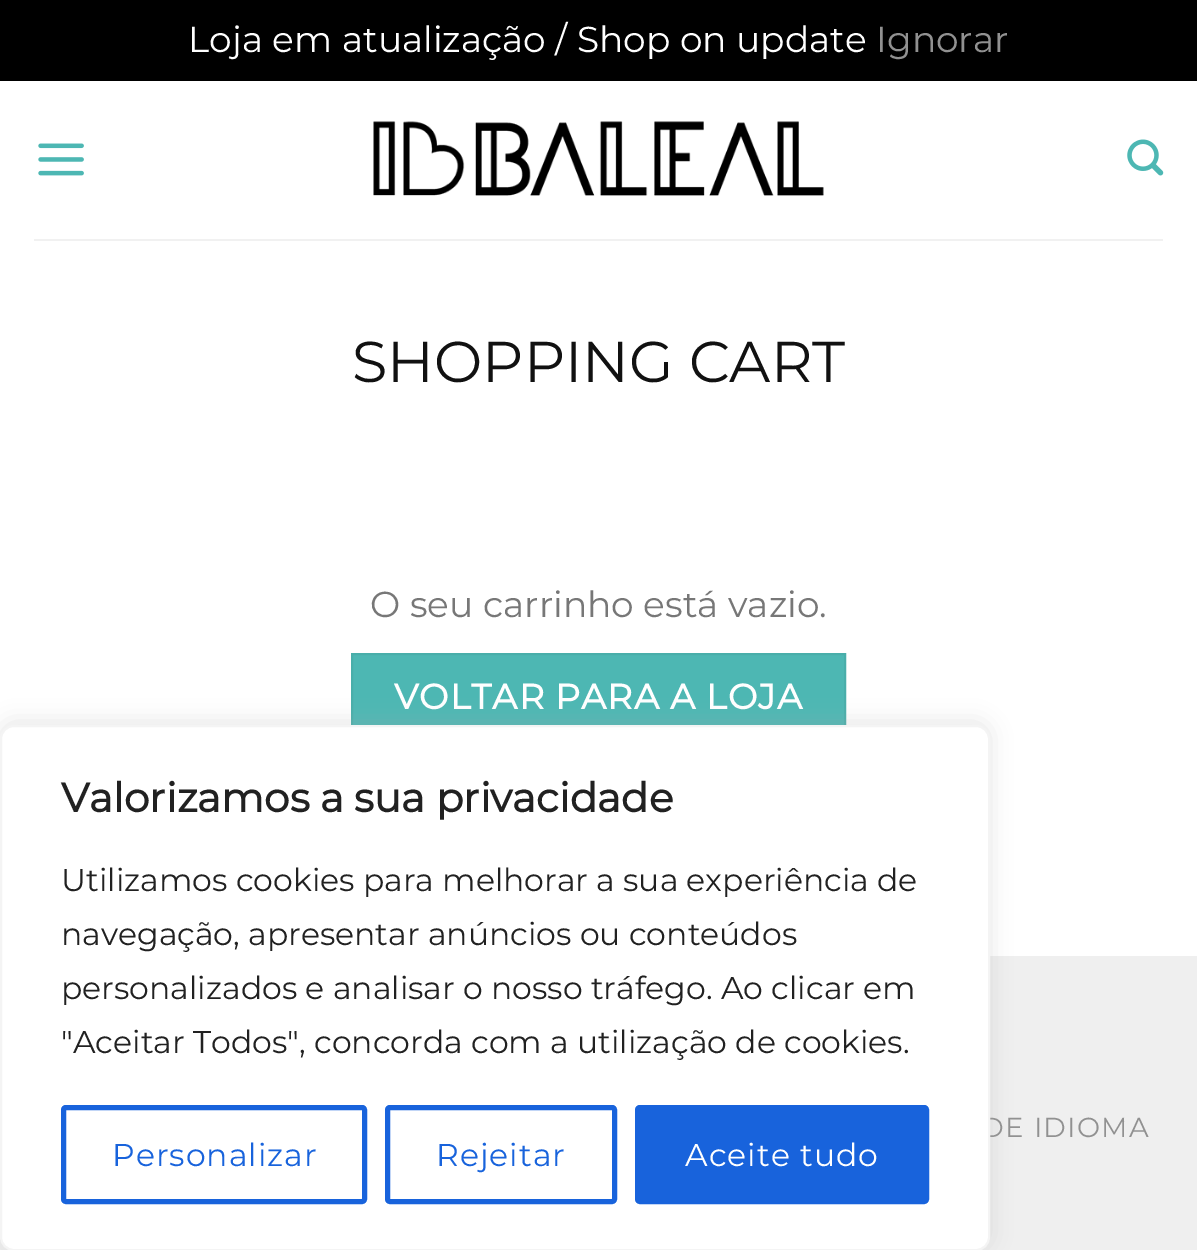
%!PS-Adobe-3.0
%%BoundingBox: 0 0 1197 1250
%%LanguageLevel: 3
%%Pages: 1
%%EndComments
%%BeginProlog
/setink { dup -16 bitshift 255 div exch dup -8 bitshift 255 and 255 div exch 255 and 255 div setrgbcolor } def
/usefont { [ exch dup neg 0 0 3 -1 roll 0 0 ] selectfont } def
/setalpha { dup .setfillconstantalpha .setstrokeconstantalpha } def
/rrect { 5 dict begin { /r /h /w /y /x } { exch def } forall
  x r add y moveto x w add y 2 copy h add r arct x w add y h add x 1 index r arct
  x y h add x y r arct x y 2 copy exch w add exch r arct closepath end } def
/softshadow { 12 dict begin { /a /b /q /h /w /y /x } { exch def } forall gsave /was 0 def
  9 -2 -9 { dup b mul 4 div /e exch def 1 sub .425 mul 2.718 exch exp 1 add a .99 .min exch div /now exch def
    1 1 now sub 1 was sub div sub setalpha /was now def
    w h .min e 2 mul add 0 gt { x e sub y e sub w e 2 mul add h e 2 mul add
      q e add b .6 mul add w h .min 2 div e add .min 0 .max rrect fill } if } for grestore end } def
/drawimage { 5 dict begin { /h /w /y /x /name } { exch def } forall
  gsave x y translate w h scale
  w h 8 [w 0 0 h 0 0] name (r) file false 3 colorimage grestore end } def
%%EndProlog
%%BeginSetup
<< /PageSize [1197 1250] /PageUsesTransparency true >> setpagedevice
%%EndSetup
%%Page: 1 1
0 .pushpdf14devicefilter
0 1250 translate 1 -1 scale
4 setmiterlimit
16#000000 setink
0 0 1197 1250 rectfill
/Montserrat-Thin 36 usefont
16#FFFFFF setink
188 52 moveto (Loja em atualização / Shop on update) show
16#919191 setink
876 52 moveto (Ignorar) show
16#FFFFFF setink
0 81 1197 875 rectfill
(img1.raw) 38 143 46 33 drawimage
(img2.raw) 373 121 451 75 drawimage
(img3.raw) 1127 139 37 37 drawimage
16#F1F1F1 setink
34 239 1129 2 rectfill
/Montserrat-Thin 57.5 usefont
16#111111 setink
352 382 moveto (SHOPPING CART) show
/Montserrat-Thin 36 usefont
16#777777 setink
370 617 moveto (O seu carrinho está vazio.) show
16#4DB7B3 setink
353 655 491 70 rectfill
16#49AEAA setink
2 setlinewidth
352 654 493 85 rectstroke
/Montserrat-Bold 35 usefont
16#FFFFFF setink
394 709 moveto 1 0 (VOLTAR PARA A LOJA) ashow
16#EFEFEF setink
0 956 1197 294 rectfill
/Montserrat-Thin 27.5 usefont
16#919191 setink
981 1137 moveto 1.4 0 (DE IDIOMA) ashow
16#ACABAB setink
0 722 990 527 14 11 0.3 softshadow
16#FFFFFF setink
1 726 988 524 13 rrect gsave fill grestore
16#F4F4F4 setink
stroke
/Montserrat-Bold 40.5 usefont
16#212121 setink
61 812 moveto (Valorizamos a sua privacidade) show
/Montserrat-Thin 31.5 usefont
[
    [(Utilizamos cookies para melhorar a sua experiência de) 61 891]
    [(navegação, apresentar anúncios ou conteúdos) 61 945]
    [(personalizados e analisar o nosso tráfego. Ao clicar em) 61 999]
    [("Aceitar Todos", concorda com a utilização de cookies.) 61 1053]
] { aload pop moveto show } forall
16#1863DC setink
5 setlinewidth
63.5 1107.5 301 94 2.5 rrect stroke
112 1166 moveto 1 0 (Personalizar) ashow
387.5 1107.5 227 94 2.5 rrect stroke
436 1166 moveto 1 0 (Rejeitar) ashow
637.5 1107.5 289 94 2.5 rrect gsave fill grestore
stroke
16#FFFFFF setink
685 1166 moveto 1 0 (Aceite tudo) ashow
.poppdf14devicefilter showpage
%%EOF
